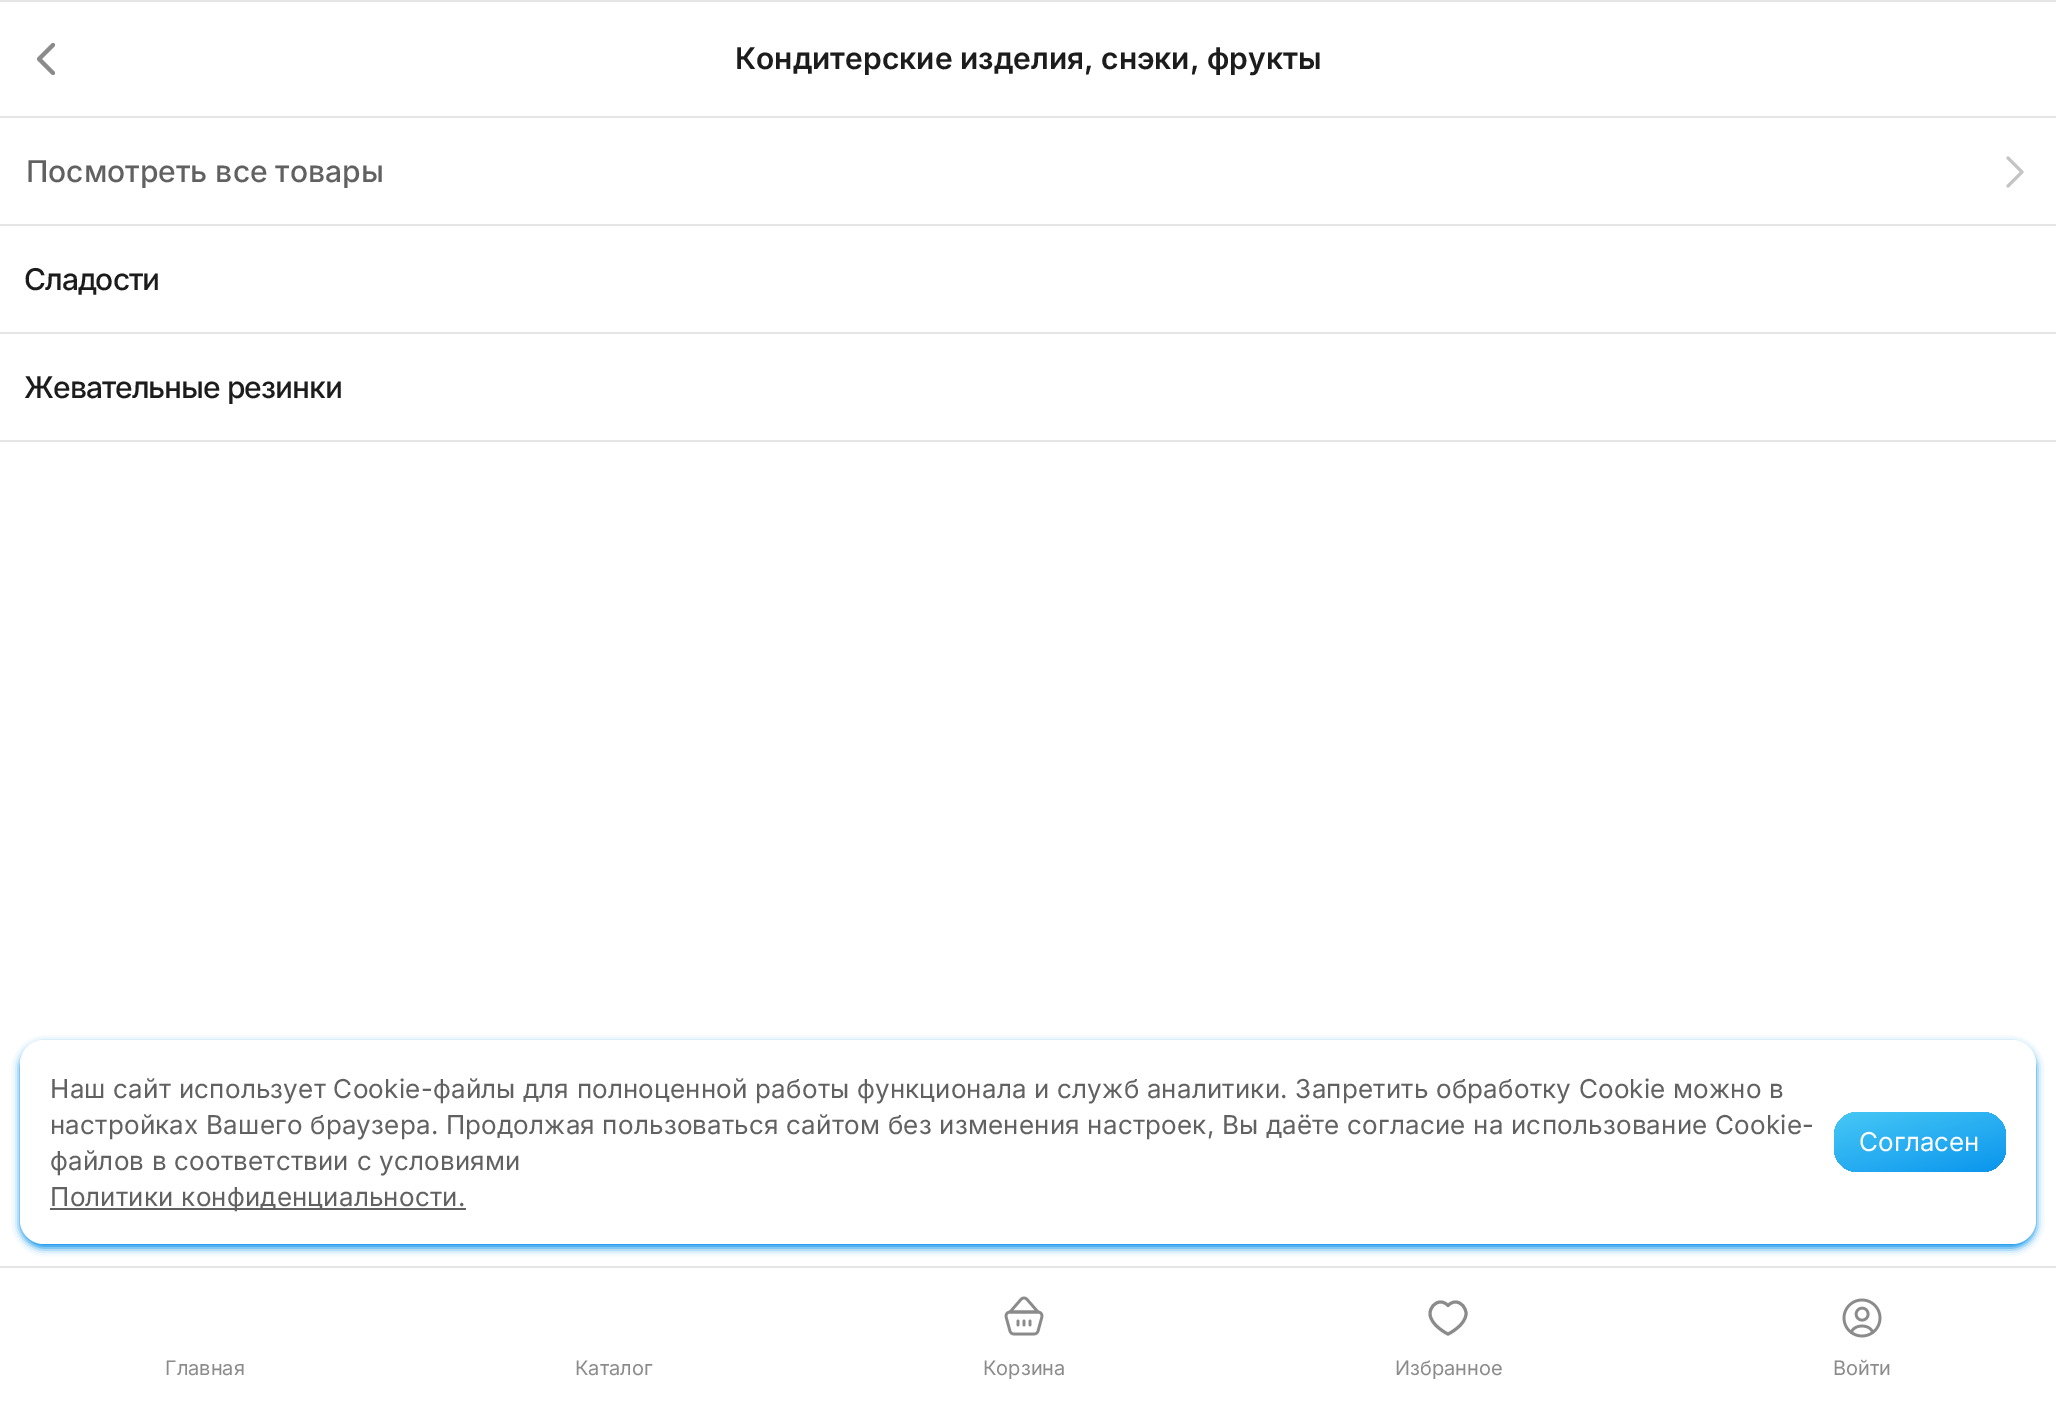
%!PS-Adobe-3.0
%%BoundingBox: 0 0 2056 1402
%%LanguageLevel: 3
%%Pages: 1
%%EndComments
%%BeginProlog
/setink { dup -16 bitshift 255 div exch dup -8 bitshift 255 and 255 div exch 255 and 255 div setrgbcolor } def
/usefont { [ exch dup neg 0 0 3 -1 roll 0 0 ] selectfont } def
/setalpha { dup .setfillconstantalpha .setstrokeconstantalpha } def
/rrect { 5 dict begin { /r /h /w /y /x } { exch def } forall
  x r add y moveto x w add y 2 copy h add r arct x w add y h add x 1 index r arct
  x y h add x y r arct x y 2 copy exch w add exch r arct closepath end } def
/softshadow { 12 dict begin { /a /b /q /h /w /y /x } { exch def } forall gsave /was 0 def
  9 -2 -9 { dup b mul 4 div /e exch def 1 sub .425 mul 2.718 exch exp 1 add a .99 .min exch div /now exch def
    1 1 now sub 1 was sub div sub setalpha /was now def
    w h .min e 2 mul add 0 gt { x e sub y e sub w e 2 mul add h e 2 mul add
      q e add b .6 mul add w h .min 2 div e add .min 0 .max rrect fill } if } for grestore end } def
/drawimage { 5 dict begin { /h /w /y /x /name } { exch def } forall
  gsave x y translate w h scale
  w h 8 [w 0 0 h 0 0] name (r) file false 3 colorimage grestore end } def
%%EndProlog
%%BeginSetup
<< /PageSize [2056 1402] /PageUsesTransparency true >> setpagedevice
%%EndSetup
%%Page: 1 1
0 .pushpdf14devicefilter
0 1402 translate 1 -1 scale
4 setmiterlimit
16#FFFFFF setink
0 0 2056 1402 rectfill
16#E5E5E5 setink
0 0 2056 2 rectfill
0 116 2056 2 rectfill
16#8B8B8B setink
4 setlinewidth
1 setlinecap
1 setlinejoin
53 45 moveto 39 59 lineto 53 73 lineto stroke
/Inter-SemiBold 30 usefont
16#1C1C1C setink
735 69 moveto (Кондитерские изделия, снэки, фрукты) show
/Inter-Medium 30 usefont
16#616161 setink
26 182 moveto (Посмотреть все товары) show
16#C4C4C4 setink
3 setlinewidth
2008 158 moveto 2022 172 lineto 2008 186 lineto stroke
16#E5E5E5 setink
0 224 2056 2 rectfill
16#1C1C1C setink
24 290 moveto -1 0 (Сладости) ashow
16#E5E5E5 setink
0 332 2056 2 rectfill
0 440 2056 2 rectfill
16#1C1C1C setink
24 398 moveto -1 0 (Жевательные резинки) ashow
16#008DEB setink
20 1044 2016 204 24 4 1 softshadow
16#FFFFFF setink
20 1040 2016 204 24 rrect fill
/Inter-Regular 26 usefont
16#616161 setink
50 1098 moveto 0.2 0 (Наш сайт использует Сookie-файлы для полноценной работы функционала и служб аналитики. Запретить обработку Cookie можно в) ashow
50 1134 moveto 0.2 0 (настройках Вашего браузера. Продолжая пользоваться сайтом без изменения настроек, Вы даёте согласие на использование Cookie-) ashow
50 1170 moveto 0.2 0 (файлов в соответствии с условиями) ashow
50 1208 416 2 rectfill
50 1206 moveto 0.2 0 (Политики конфиденциальности.) ashow
gsave 1834 1112 172 60 24 rrect clip newpath
<< /ShadingType 2 /ColorSpace /DeviceRGB /Coords [1940 1210 1877 996] /Extend [true true] /Function << /FunctionType 2 /Domain [0 1] /C0 [0 0.553 0.922] /C1 [0.502 0.969 1] /N 1 >> >> shfill grestore
16#FFFFFF setink
1859 1151 moveto (Согласен) show
16#E5E5E5 setink
0 1266 2056 2 rectfill
/Inter-Regular 20 usefont
16#8B8B8B setink
165 1375 moveto (Главная) show
575 1375 moveto (Каталог) show
(img1.raw) 1004 1296 40 40 drawimage
983 1375 moveto (Корзина) show
1455.5 1302 moveto 1461.5 1302 1466 1308 1466 1313.5 curveto 1466 1325 1448.5 1334 1448 1334 curveto 1447.5 1334 1430 1325 1430 1313.5 curveto 1430 1308 1434.5 1302 1440.5 1302 curveto 1444 1302 1446.5 1304 1448 1305.5 curveto 1449.5 1304 1452 1302 1455.5 1302 curveto closepath stroke
1395 1375 moveto (Избранное) show
(img2.raw) 1842 1298 40 40 drawimage
1833 1375 moveto (Войти) show
.poppdf14devicefilter showpage
%%EOF
